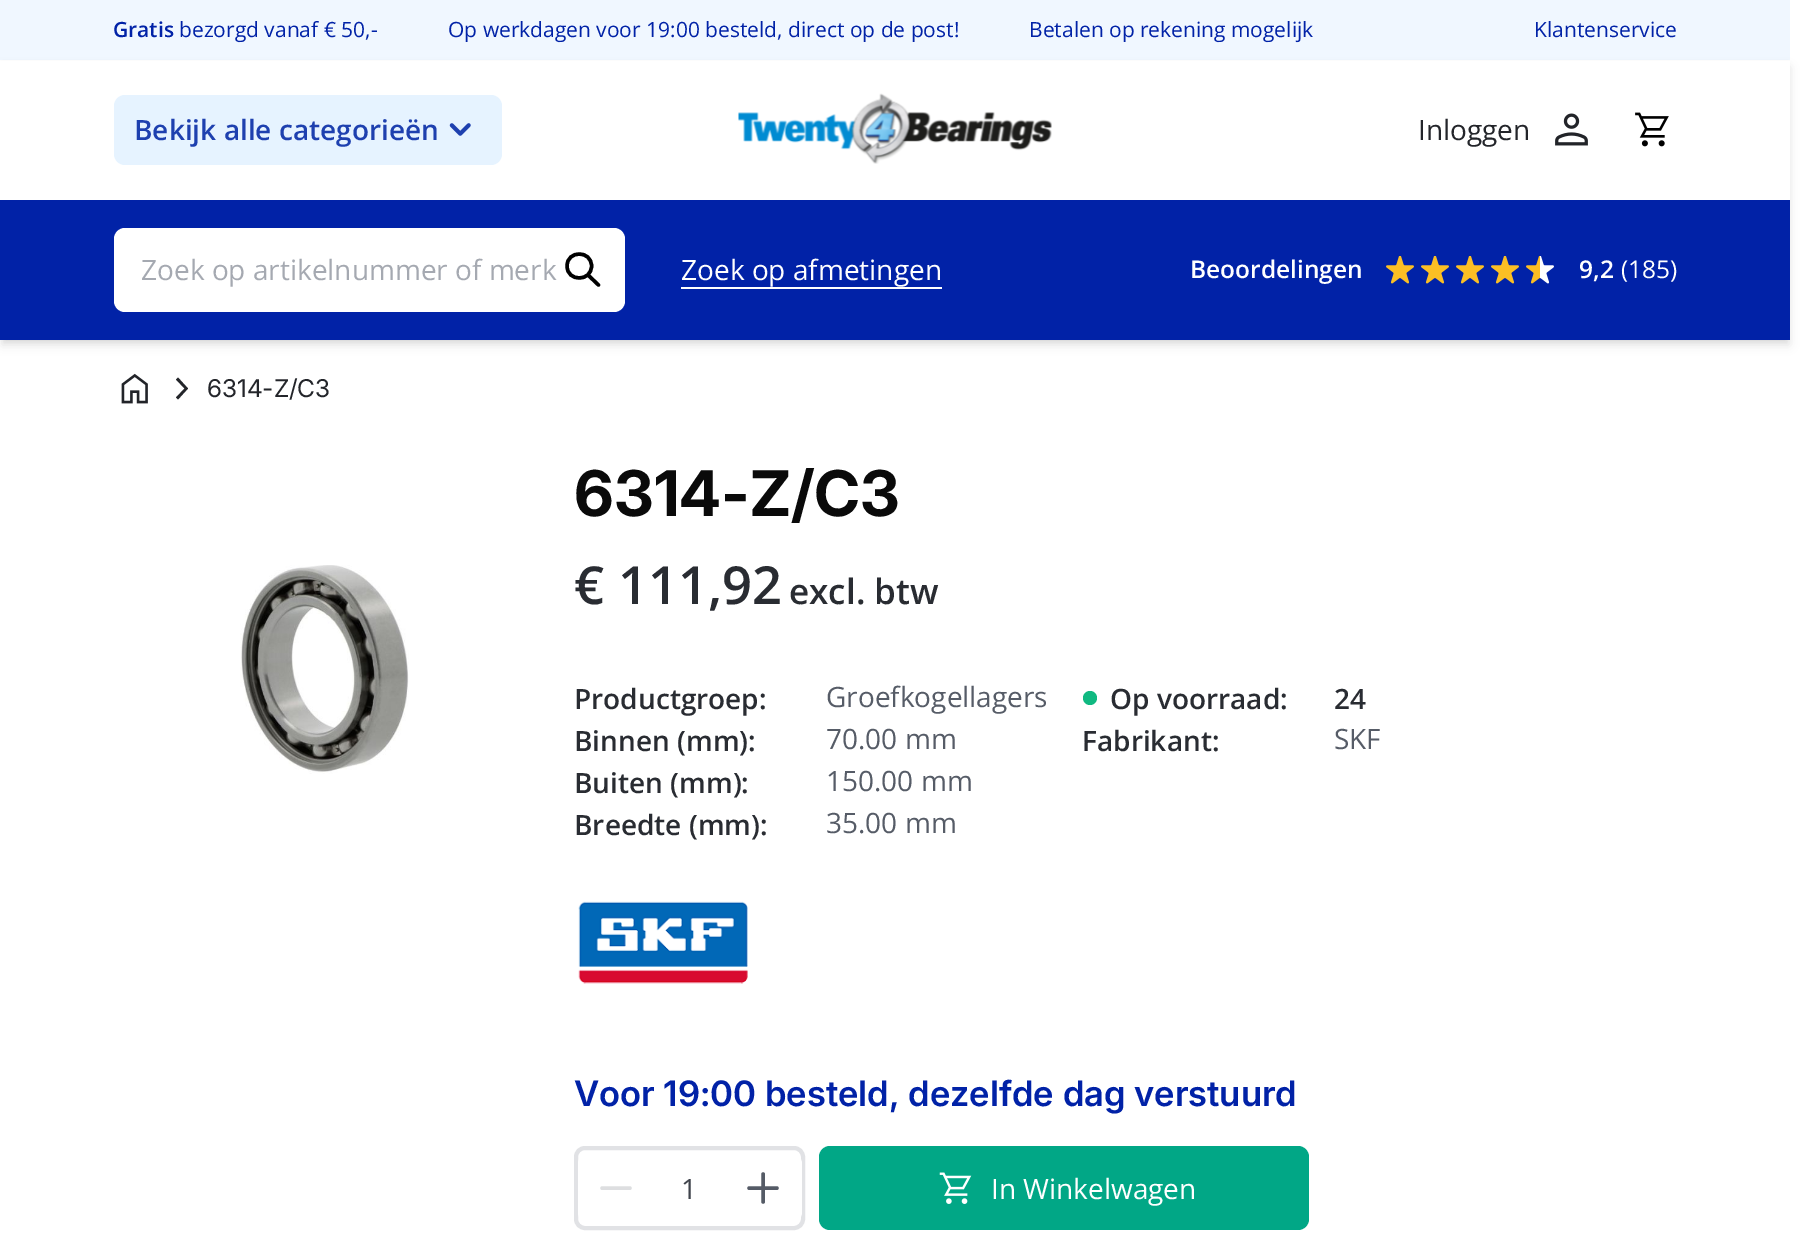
%!PS-Adobe-3.0
%%BoundingBox: 0 0 1816 1236
%%LanguageLevel: 3
%%Pages: 1
%%EndComments
%%BeginProlog
/setink { dup -16 bitshift 255 div exch dup -8 bitshift 255 and 255 div exch 255 and 255 div setrgbcolor } def
/usefont { [ exch dup neg 0 0 3 -1 roll 0 0 ] selectfont } def
/setalpha { dup .setfillconstantalpha .setstrokeconstantalpha } def
/disc { newpath 0 360 arc closepath } def
/rrect { 5 dict begin { /r /h /w /y /x } { exch def } forall
  x r add y moveto x w add y 2 copy h add r arct x w add y h add x 1 index r arct
  x y h add x y r arct x y 2 copy exch w add exch r arct closepath end } def
/softshadow { 12 dict begin { /a /b /q /h /w /y /x } { exch def } forall gsave /was 0 def
  9 -2 -9 { dup b mul 4 div /e exch def 1 sub .425 mul 2.718 exch exp 1 add a .99 .min exch div /now exch def
    1 1 now sub 1 was sub div sub setalpha /was now def
    w h .min e 2 mul add 0 gt { x e sub y e sub w e 2 mul add h e 2 mul add
      q e add b .6 mul add w h .min 2 div e add .min 0 .max rrect fill } if } for grestore end } def
/drawimage { 5 dict begin { /h /w /y /x /name } { exch def } forall
  gsave x y translate w h scale
  w h 8 [w 0 0 h 0 0] name (r) file false 3 colorimage grestore end } def
%%EndProlog
%%BeginSetup
<< /PageSize [1816 1236] /PageUsesTransparency true >> setpagedevice
%%EndSetup
%%Page: 1 1
0 .pushpdf14devicefilter
0 1236 translate 1 -1 scale
4 setmiterlimit
16#FFFFFF setink
0 0 1816 1236 rectfill
16#F0F7FF setink
0 0 1790 60 rectfill
/OpenSans-SemiBold 21 usefont
16#0122A7 setink
113 37 moveto (Gratis) show
/OpenSans-Regular 21 usefont
[
    [(bezorgd vanaf € 50,-) 179 37]
    [(Op werkdagen voor 19:00 besteld, direct op de post!) 448 37]
    [(Betalen op rekening mogelijk) 1029 37]
    [(Klantenservice) 1534 37]
] { aload pop moveto show } forall
16#000000 setink
4 67 1783 273 0 3.5 0.1 softshadow
2 68 1787 277 0 5 0.1 softshadow
16#FFFFFF setink
0 61 1790 139 rectfill
16#E6F3FF setink
114 95 388 70 11 rrect fill
/OpenSans-SemiBold 28 usefont
16#1E40AF setink
134 140 moveto (Bekijk alle categorieën) show
(img1.raw) 449 123 22 13 drawimage
(img2.raw) 738 93 314 71 drawimage
/OpenSans-Regular 28 usefont
16#23252A setink
1418 140 moveto (Inloggen) show
(img3.raw) 1555 113 33 33 drawimage
(img4.raw) 1635 112 34 35 drawimage
16#0122A7 setink
0 200 1790 140 rectfill
16#FFFFFF setink
114 228 511 84 11 rrect fill
16#A5A9B1 setink
141 280 moveto (Zoek op artikelnummer of merk) show
16#000000 setink
3.5 setlinewidth
1 setlinecap
1 setlinejoin
598.5 285 moveto 588 275 lineto 591.5 266 moveto 591.5 282 567 282 567 266 curveto 567 250 591.5 250 591.5 266 curveto closepath stroke
16#FFFFFF setink
681 280 moveto (Zoek op afmetingen) show
681 287 261 2 rectfill
/OpenSans-SemiBold 24.5 usefont
1190 278 moveto (Beoordelingen) show
(img5.raw) 1386 256 28 28 drawimage
(img5.raw) 1421 256 28 28 drawimage
(img5.raw) 1456 256 28 28 drawimage
(img5.raw) 1491 256 28 28 drawimage
(img6.raw) 1526 256 28 28 drawimage
1579 278 moveto (9,2) show
/OpenSans-Regular 24.5 usefont
1621 278 moveto (\(185\)) show
(img7.raw) 121 373 27 31 drawimage
16#23252A setink
184.5 388.5 moveto 176 379.5 lineto 178 377.5 lineto 188 388.5 lineto 178 399.5 lineto 176 397.5 lineto closepath fill
/Inter-Regular 24.5 usefont
207 397 moveto (6314-Z/C3) show
(img8.raw) 240 565 169 209 drawimage
/Inter-Bold 63 usefont
16#0A0A0A setink
574 516 moveto (6314-Z/C3) show
/OpenSans-SemiBold 52.5 usefont
16#292C32 setink
574 604 moveto (€ 111,92) show
/OpenSans-SemiBold 35 usefont
789 604 moveto (excl. btw) show
/OpenSans-SemiBold 28 usefont
574 709 moveto (Productgroep:) show
/OpenSans-Regular 28 usefont
16#565C67 setink
826 707 moveto (Groefkogellagers) show
/OpenSans-SemiBold 28 usefont
16#292C32 setink
574 751 moveto (Binnen \(mm\):) show
/OpenSans-Regular 28 usefont
16#565C67 setink
826 749 moveto (70.00 mm) show
/OpenSans-SemiBold 28 usefont
16#292C32 setink
574 793 moveto (Buiten \(mm\):) show
/OpenSans-Regular 28 usefont
16#565C67 setink
826 791 moveto (150.00 mm) show
/OpenSans-SemiBold 28 usefont
16#292C32 setink
574 835 moveto (Breedte \(mm\):) show
/OpenSans-Regular 28 usefont
16#565C67 setink
826 833 moveto (35.00 mm) show
16#10B981 setink
1090 698 7 disc fill
/OpenSans-SemiBold 28 usefont
16#292C32 setink
[
    [(Op voorraad:) 1110 709]
    [(24) 1334 709]
    [(Fabrikant:) 1082 751]
] { aload pop moveto show } forall
/OpenSans-Regular 28 usefont
16#565C67 setink
1334 749 moveto (SKF) show
(img9.raw) 578 901 170 83 drawimage
/Inter-SemiBold 35 usefont
16#0122A7 setink
574 1106 moveto (Voor 19:00 besteld, dezelfde dag verstuurd) show
16#E1E2E5 setink
4 setlinewidth
0 setlinecap
0 setlinejoin
576 1148 227 80 9 rrect stroke
16#FFFFFF setink
578 1153 224 70 11 rrect fill
16#DDDEE0 setink
3.5 setlinewidth
1 setlinecap
1 setlinejoin
630 1188 moveto 602 1188 lineto stroke
/OpenSans-Regular 28 usefont
16#3F434B setink
681 1199 moveto (1) show
16#555B66 setink
763 1174 moveto 763 1202 lineto 777 1188 moveto 749 1188 lineto stroke
16#01A786 setink
819 1146 490 84 11 rrect fill
(img10.raw) 939 1172 33 32 drawimage
16#FFFFFF setink
991 1199 moveto (In Winkelwagen) show
.poppdf14devicefilter showpage
%%EOF
